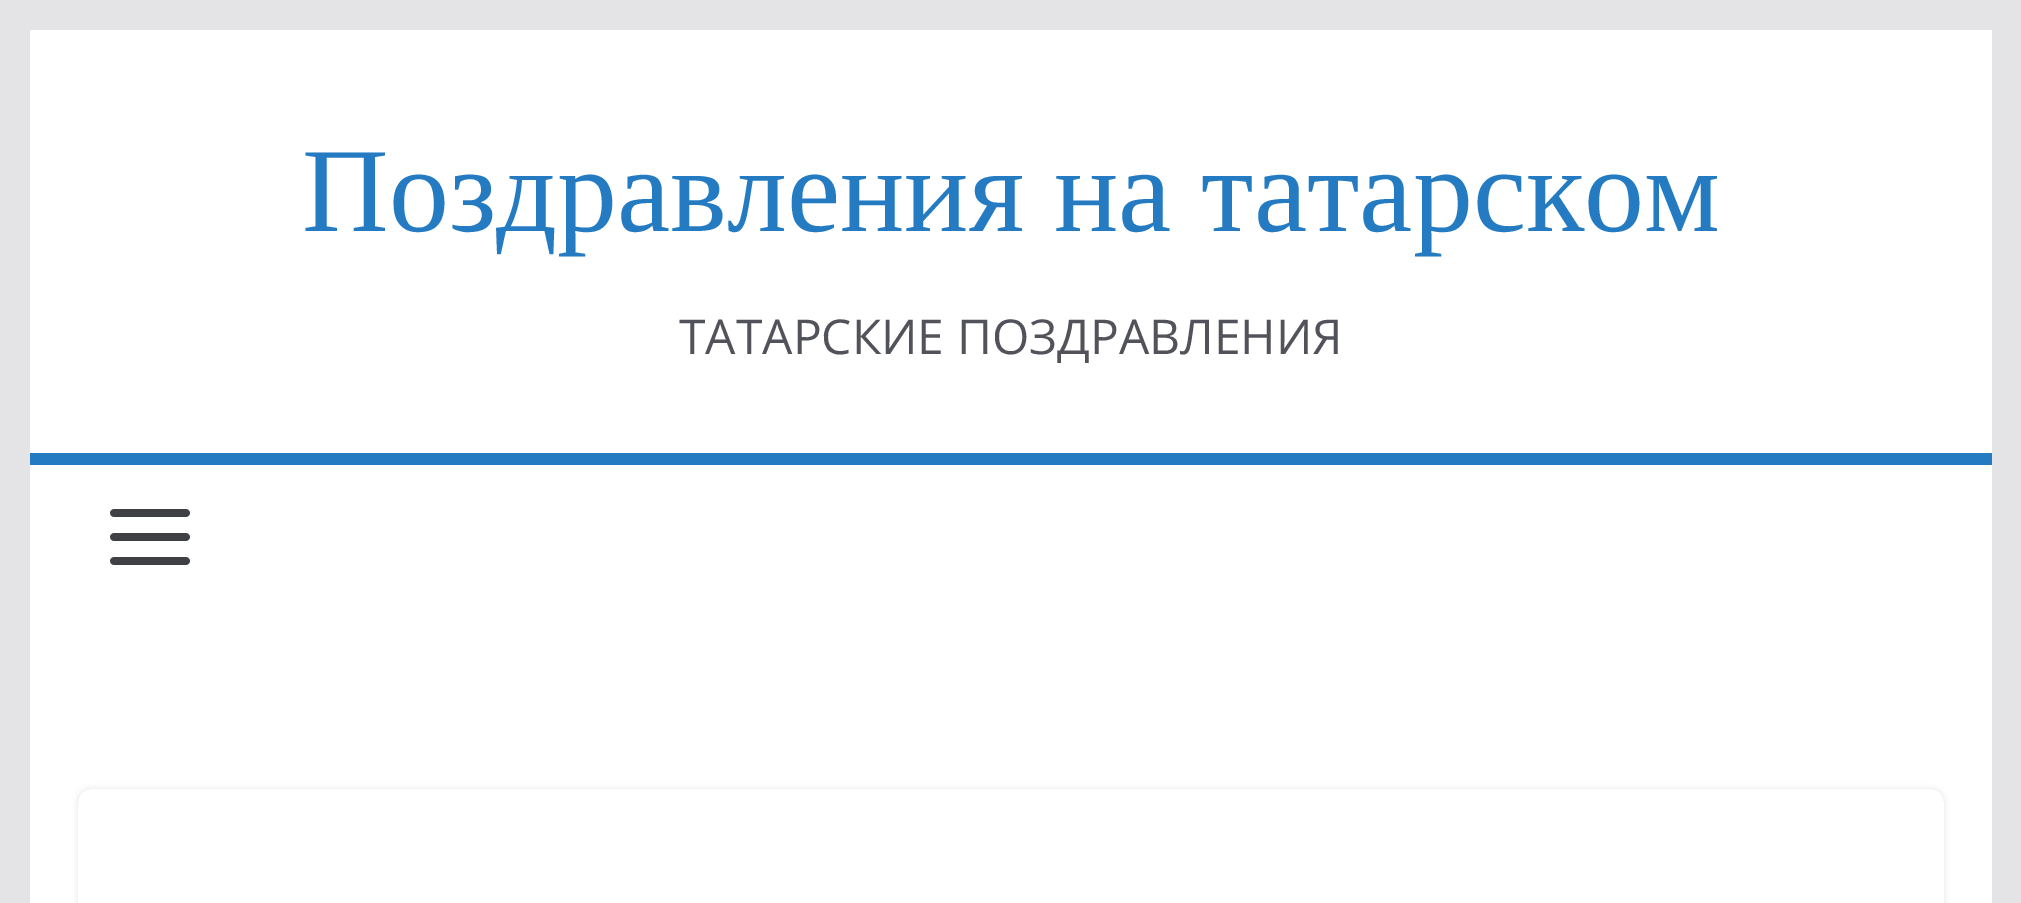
%!PS-Adobe-3.0
%%BoundingBox: 0 0 2021 903
%%LanguageLevel: 3
%%Pages: 1
%%EndComments
%%BeginProlog
/setink { dup -16 bitshift 255 div exch dup -8 bitshift 255 and 255 div exch 255 and 255 div setrgbcolor } def
/usefont { [ exch dup neg 0 0 3 -1 roll 0 0 ] selectfont } def
/setalpha { dup .setfillconstantalpha .setstrokeconstantalpha } def
/rrect { 5 dict begin { /r /h /w /y /x } { exch def } forall
  x r add y moveto x w add y 2 copy h add r arct x w add y h add x 1 index r arct
  x y h add x y r arct x y 2 copy exch w add exch r arct closepath end } def
/softshadow { 12 dict begin { /a /b /q /h /w /y /x } { exch def } forall gsave /was 0 def
  9 -2 -9 { dup b mul 4 div /e exch def 1 sub .425 mul 2.718 exch exp 1 add a .99 .min exch div /now exch def
    1 1 now sub 1 was sub div sub setalpha /was now def
    w h .min e 2 mul add 0 gt { x e sub y e sub w e 2 mul add h e 2 mul add
      q e add b .6 mul add w h .min 2 div e add .min 0 .max rrect fill } if } for grestore end } def
/drawimage { 5 dict begin { /h /w /y /x /name } { exch def } forall
  gsave x y translate w h scale
  w h 8 [w 0 0 h 0 0] name (r) file false 3 colorimage grestore end } def
%%EndProlog
%%BeginSetup
<< /PageSize [2021 903] /PageUsesTransparency true >> setpagedevice
%%EndSetup
%%Page: 1 1
0 .pushpdf14devicefilter
0 903 translate 1 -1 scale
4 setmiterlimit
16#E4E4E7 setink
0 0 2021 903 rectfill
16#FFFFFF setink
30 30 1962 873 rectfill
/LiberationSerif-Regular 120 usefont
16#257BC1 setink
302 231 moveto (Поздравления на татарском) show
/OpenSans-Regular 48 usefont
16#52525B setink
679 354 moveto (ТАТАРСКИЕ ПОЗДРАВЛЕНИЯ) show
16#257BC1 setink
30 453 1962 12 rectfill
(img1.raw) 110 509 80 56 drawimage
gsave
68 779 moveto 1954 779 lineto 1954 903 lineto 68 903 lineto closepath 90 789 moveto 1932 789 lineto 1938.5 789 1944 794.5 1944 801 curveto 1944 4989 lineto 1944 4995.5 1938.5 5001 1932 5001 curveto 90 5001 lineto 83.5 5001 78 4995.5 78 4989 curveto 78 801 lineto 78 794.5 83.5 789 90 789 curveto closepath eoclip newpath
16#E4E4E7 setink
78 789 1866 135 12 3 1 softshadow
grestore
.poppdf14devicefilter showpage
%%EOF
